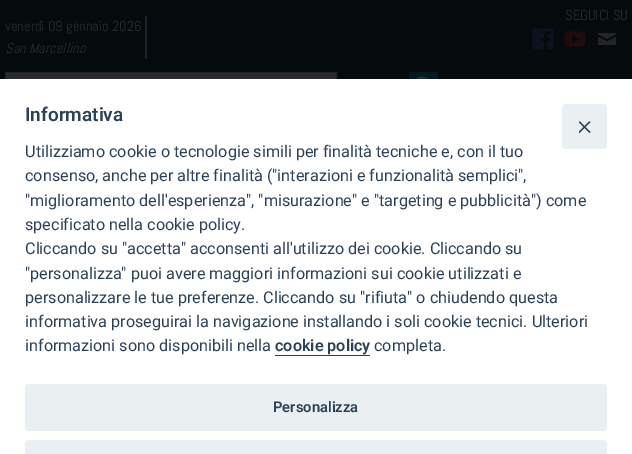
%!PS-Adobe-3.0
%%BoundingBox: 0 0 632 454
%%LanguageLevel: 3
%%Pages: 1
%%EndComments
%%BeginProlog
/setink { dup -16 bitshift 255 div exch dup -8 bitshift 255 and 255 div exch 255 and 255 div setrgbcolor } def
/usefont { [ exch dup neg 0 0 3 -1 roll 0 0 ] selectfont } def
/rrect { 5 dict begin { /r /h /w /y /x } { exch def } forall
  x r add y moveto x w add y 2 copy h add r arct x w add y h add x 1 index r arct
  x y h add x y r arct x y 2 copy exch w add exch r arct closepath end } def
/drawimage { 5 dict begin { /h /w /y /x /name } { exch def } forall
  gsave x y translate w h scale
  w h 8 [w 0 0 h 0 0] name (r) file false 3 colorimage grestore end } def
%%EndProlog
%%BeginSetup
<< /PageSize [632 454] >> setpagedevice
%%EndSetup
%%Page: 1 1
0 454 translate 1 -1 scale
4 setmiterlimit
16#050A0D setink
0 0 632 454 rectfill
/Abel-Regular 14.5 usefont
16#2A2B2D setink
565 20 moveto (SEGUICI SU) show
(img1.raw) 532 28 22 22 drawimage
(img2.raw) 564 31 22 16 drawimage
(img3.raw) 598 33 18 12 drawimage
16#18242C setink
145 16 2 43 rectfill
16#2A2B2D setink
5 31 moveto (venerdì 09 gennaio 2026) show
/Abel-Italic 14.5 usefont
5 53 moveto (San Marcellino) show
6 73 330 6 rectfill
16#222325 setink
5.5 72.5 331 28 rectstroke
16#031A23 setink
409 72 29 7 rectfill
(img4.raw) 415 76 13 3 drawimage
16#FFFFFF setink
0 79 632 375 rectfill
16#EAEFF2 setink
562 104 45 45 4 rrect fill
16#2D4156 setink
590 121.5 moveto 590.5 122 590.5 122.5 590 122.5 curveto 580 132.5 lineto 580 133 579.5 133 579 132.5 curveto 579 132.5 579 132 579 131.5 curveto 589 121.5 lineto 589.5 121.5 590 121.5 590 121.5 curveto closepath fill
579 121.5 moveto 579.5 121.5 580 121.5 580 121.5 curveto 590 131.5 lineto 590.5 132 590.5 132.5 590 132.5 curveto 590 133 589.5 133 589 132.5 curveto 579 122.5 lineto 579 122.5 579 122 579 121.5 curveto closepath fill
/Roboto-SemiBold 19 usefont
25 121 moveto (Informativa) show
/Roboto-Regular 16.2 usefont
[
    [(Utilizziamo cookie o tecnologie simili per finalità tecniche e, con il tuo) 25 157]
    [(consenso, anche per altre finalità \("interazioni e funzionalità semplici",) 25 181]
    [("miglioramento dell'esperienza", "misurazione" e "targeting e pubblicità"\) come) 25 206]
    [(specificato nella cookie policy.) 25 230]
    [(Cliccando su "accetta" acconsenti all'utilizzo dei cookie. Cliccando su) 25 254]
    [("personalizza" puoi avere maggiori informazioni sui cookie utilizzati e) 25 279]
    [(personalizzare le tue preferenze. Cliccando su "rifiuta" o chiudendo questa) 25 303]
    [(informativa proseguirai la navigazione installando i soli cookie tecnici. Ulteriori) 25 327]
    [(informazioni sono disponibili nella) 25 351]
] { aload pop moveto show } forall
/Roboto-SemiBold 16.2 usefont
275 351 moveto (cookie policy) show
275 355 95 1 rectfill
/Roboto-Regular 16.2 usefont
374 351 moveto (completa.) show
16#EAEFF2 setink
25 384 582 47 4 rrect fill
/Roboto-SemiBold 14.75 usefont
16#2D4156 setink
273 412 moveto (Personalizza) show
16#EAEFF2 setink
29 440 moveto 603 440 lineto 605 440 607 442 607 444 curveto 607 454 lineto 25 454 lineto 25 444 lineto 25 442 27 440 29 440 curveto closepath fill
showpage
%%EOF
